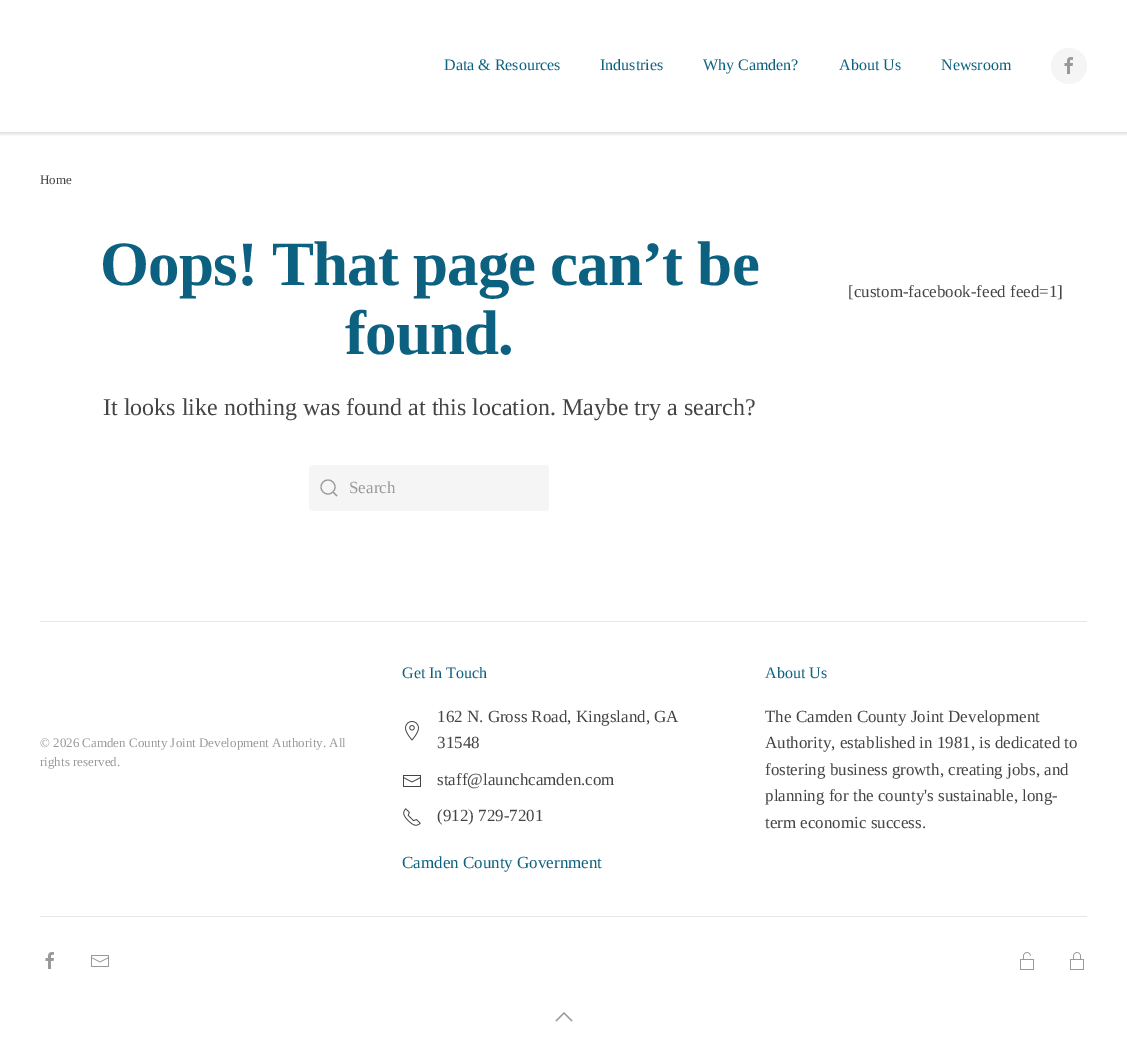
%!PS-Adobe-3.0
%%BoundingBox: 0 0 1127 1058
%%LanguageLevel: 3
%%Pages: 1
%%EndComments
%%BeginProlog
/setink { dup -16 bitshift 255 div exch dup -8 bitshift 255 and 255 div exch 255 and 255 div setrgbcolor } def
/usefont { [ exch dup neg 0 0 3 -1 roll 0 0 ] selectfont } def
/setalpha { dup .setfillconstantalpha .setstrokeconstantalpha } def
/disc { newpath 0 360 arc closepath } def
/rrect { 5 dict begin { /r /h /w /y /x } { exch def } forall
  x r add y moveto x w add y 2 copy h add r arct x w add y h add x 1 index r arct
  x y h add x y r arct x y 2 copy exch w add exch r arct closepath end } def
/softshadow { 12 dict begin { /a /b /q /h /w /y /x } { exch def } forall gsave /was 0 def
  9 -2 -9 { dup b mul 4 div /e exch def 1 sub .425 mul 2.718 exch exp 1 add a .99 .min exch div /now exch def
    1 1 now sub 1 was sub div sub setalpha /was now def
    w h .min e 2 mul add 0 gt { x e sub y e sub w e 2 mul add h e 2 mul add
      q e add b .6 mul add w h .min 2 div e add .min 0 .max rrect fill } if } for grestore end } def
/drawimage { 5 dict begin { /h /w /y /x /name } { exch def } forall
  gsave x y translate w h scale
  w h 8 [w 0 0 h 0 0] name (r) file false 3 colorimage grestore end } def
%%EndProlog
%%BeginSetup
<< /PageSize [1127 1058] /PageUsesTransparency true >> setpagedevice
%%EndSetup
%%Page: 1 1
0 .pushpdf14devicefilter
0 1058 translate 1 -1 scale
4 setmiterlimit
16#FFFFFF setink
0 0 1127 1058 rectfill
gsave
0 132 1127 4 rectclip
16#000000 setink
0 0 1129 134 0 1.5 0.13 softshadow
grestore
/LiberationSerif-Regular 16 usefont
16#0D6180 setink
[
    [(Data & Resources) 444 70]
    [(Industries) 600 70]
    [(Why Camden?) 703 70]
    [(About Us) 839 70]
    [(Newsroom) 941 70]
] { aload pop moveto show } forall
16#F5F5F5 setink
1069 66 18 disc fill
(img1.raw) 1064 57 9 17 drawimage
/LiberationSerif-Regular 13 usefont
16#444444 setink
40 184 moveto (Home) show
/LiberationSerif-Bold 63 usefont
16#0D6180 setink
100 285 moveto -0.85 0 (Oops! That page can’t be) ashow
345 354 moveto -0.85 0 (found.) ashow
/LiberationSerif-Regular 24 usefont
16#444444 setink
103 415 moveto (It looks like nothing was found at this location. Maybe try a search?) show
16#F5F5F5 setink
309 465 240 46 4 rrect fill
16#999999 setink
1.1 setlinewidth
328 487 7 disc stroke
333 492 moveto 337 496 lineto closepath stroke
/LiberationSerif-Regular 17 usefont
349 493 moveto (Search) show
16#444444 setink
848 297 moveto ([custom-facebook-feed feed=1]) show
16#E6E6E6 setink
40 621 1047 1 rectfill
/LiberationSerif-Regular 13 usefont
16#999999 setink
40 747 moveto (© 2026 Camden County Joint Development Authority. All) show
40 766 moveto (rights reserved.) show
/LiberationSerif-Regular 16 usefont
16#0D6180 setink
402 678 moveto (Get In Touch) show
(img2.raw) 405 721 14 20 drawimage
/LiberationSerif-Regular 17 usefont
16#444444 setink
437 722 moveto (162 N. Gross Road, Kingsland, GA) show
437 748 moveto (31548) show
(img3.raw) 403 775 18 12 drawimage
437 785 moveto (staff@launchcamden.com) show
(img4.raw) 403 808 18 18 drawimage
437 821 moveto (\(912\) 729-7201) show
16#0D6180 setink
402 868 moveto (Camden County Government) show
/LiberationSerif-Regular 16 usefont
765 678 moveto (About Us) show
/LiberationSerif-Regular 17 usefont
16#444444 setink
[
    [(The Camden County Joint Development) 765 722]
    [(Authority, established in 1981, is dedicated to) 765 748]
    [(fostering business growth, creating jobs, and) 765 775]
    [(planning for the county's sustainable, long-) 765 801]
    [(term economic success.) 765 828]
] { aload pop moveto show } forall
16#E6E6E6 setink
40 916 1047 1 rectfill
(img5.raw) 45 952 9 17 drawimage
(img6.raw) 91 955 18 12 drawimage
(img7.raw) 1020 952 14 18 drawimage
(img8.raw) 1070 952 14 18 drawimage
16#999999 setink
1.2 setlinewidth
556 1021 moveto 564 1013 lineto 572 1021 lineto stroke
.poppdf14devicefilter showpage
%%EOF
